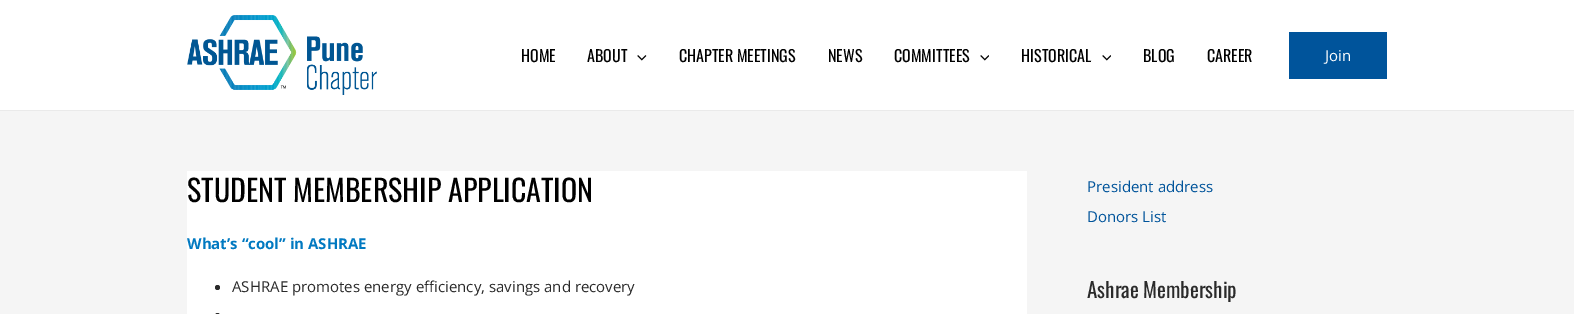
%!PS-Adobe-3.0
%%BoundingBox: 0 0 1574 314
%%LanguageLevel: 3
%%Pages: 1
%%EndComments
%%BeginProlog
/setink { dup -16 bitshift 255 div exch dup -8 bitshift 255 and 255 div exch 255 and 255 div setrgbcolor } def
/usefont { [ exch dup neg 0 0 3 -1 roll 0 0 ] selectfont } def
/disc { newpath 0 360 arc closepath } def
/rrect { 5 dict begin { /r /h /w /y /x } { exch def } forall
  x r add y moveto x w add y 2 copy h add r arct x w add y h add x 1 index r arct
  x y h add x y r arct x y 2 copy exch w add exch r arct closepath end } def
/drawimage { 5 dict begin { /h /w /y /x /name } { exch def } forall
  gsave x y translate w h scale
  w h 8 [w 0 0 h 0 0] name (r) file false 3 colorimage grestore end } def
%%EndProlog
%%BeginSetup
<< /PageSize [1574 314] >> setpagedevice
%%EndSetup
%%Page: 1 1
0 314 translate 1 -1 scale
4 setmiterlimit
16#F5F5F5 setink
0 0 1574 314 rectfill
16#FFFFFF setink
0 0 1574 110 rectfill
16#EAEAEA setink
0 110 1574 1 rectfill
(img1.raw) 187 15 190 80 drawimage
/Oswald-Regular 16 usefont
16#000000 setink
521 62 moveto (HOME) show
587 62 moveto (ABOUT) show
(img2.raw) 637 55 10 6 drawimage
[
    [(CHAPTER MEETINGS) 679 62]
    [(NEWS) 828 62]
    [(COMMITTEES) 894 62]
] { aload pop moveto show } forall
(img3.raw) 980 55 9 6 drawimage
1021 62 moveto (HISTORICAL) show
(img3.raw) 1102 55 9 6 drawimage
1143 62 moveto (BLOG) show
1207 62 moveto (CAREER) show
16#00549B setink
1289 32 98 47 rectfill
/OpenSans-Regular 15 usefont
16#FFFFFF setink
1325 61 moveto (Join) show
187 171 840 143 rectfill
/Oswald-Regular 30 usefont
16#000000 setink
187 202 moveto (STUDENT MEMBERSHIP APPLICATION) show
/OpenSans-Bold 15 usefont
16#0079C1 setink
187 249 moveto (What’s “cool” in ASHRAE) show
16#2A2A2A setink
217.5 287.5 2.5 disc fill
/OpenSans-Regular 15 usefont
232 292 moveto (ASHRAE promotes energy efficiency, savings and recovery) show
215 313 5 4 2.5 rrect fill
16#00549B setink
1087 192 moveto (President address) show
1087 222 moveto (Donors List) show
/Oswald-Regular 21 usefont
16#2A2A2A setink
1087 298 moveto (Ashrae Membership) show
showpage
%%EOF
